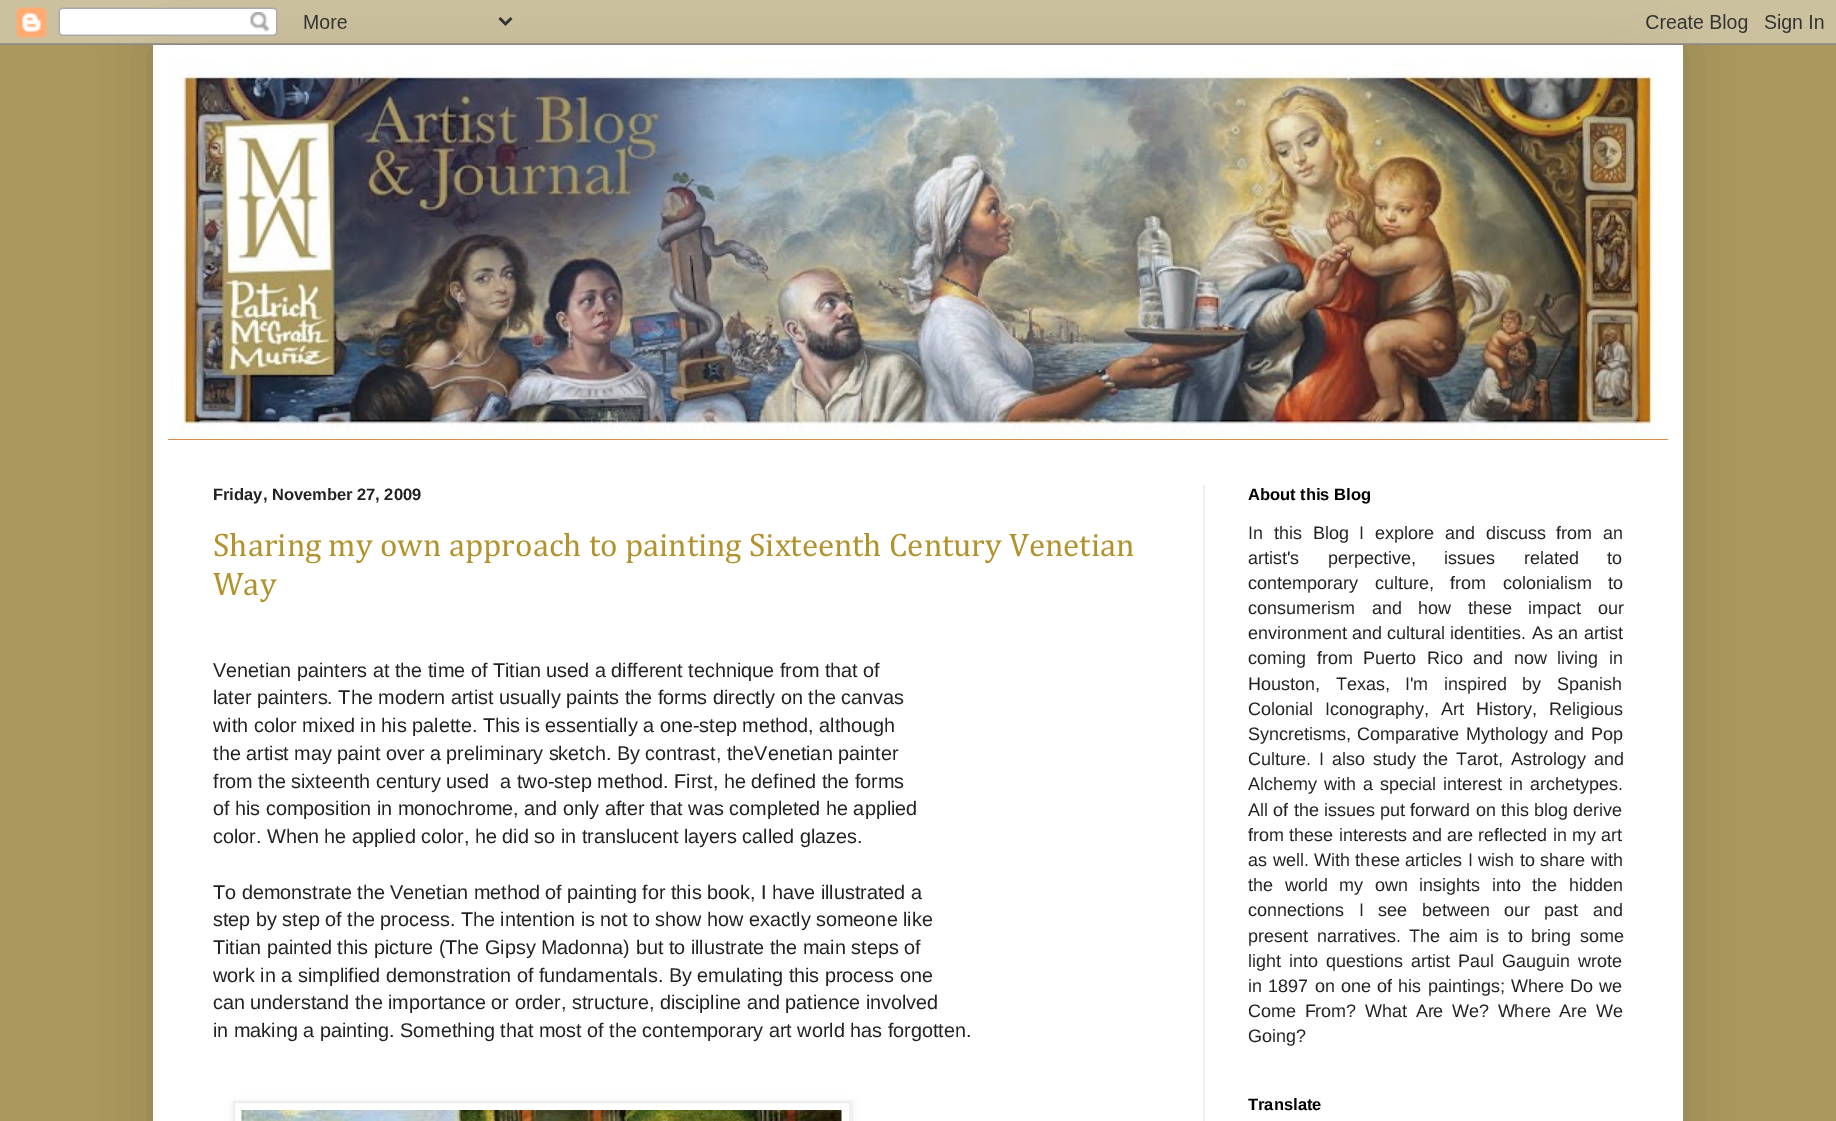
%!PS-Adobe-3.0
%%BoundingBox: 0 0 1836 1121
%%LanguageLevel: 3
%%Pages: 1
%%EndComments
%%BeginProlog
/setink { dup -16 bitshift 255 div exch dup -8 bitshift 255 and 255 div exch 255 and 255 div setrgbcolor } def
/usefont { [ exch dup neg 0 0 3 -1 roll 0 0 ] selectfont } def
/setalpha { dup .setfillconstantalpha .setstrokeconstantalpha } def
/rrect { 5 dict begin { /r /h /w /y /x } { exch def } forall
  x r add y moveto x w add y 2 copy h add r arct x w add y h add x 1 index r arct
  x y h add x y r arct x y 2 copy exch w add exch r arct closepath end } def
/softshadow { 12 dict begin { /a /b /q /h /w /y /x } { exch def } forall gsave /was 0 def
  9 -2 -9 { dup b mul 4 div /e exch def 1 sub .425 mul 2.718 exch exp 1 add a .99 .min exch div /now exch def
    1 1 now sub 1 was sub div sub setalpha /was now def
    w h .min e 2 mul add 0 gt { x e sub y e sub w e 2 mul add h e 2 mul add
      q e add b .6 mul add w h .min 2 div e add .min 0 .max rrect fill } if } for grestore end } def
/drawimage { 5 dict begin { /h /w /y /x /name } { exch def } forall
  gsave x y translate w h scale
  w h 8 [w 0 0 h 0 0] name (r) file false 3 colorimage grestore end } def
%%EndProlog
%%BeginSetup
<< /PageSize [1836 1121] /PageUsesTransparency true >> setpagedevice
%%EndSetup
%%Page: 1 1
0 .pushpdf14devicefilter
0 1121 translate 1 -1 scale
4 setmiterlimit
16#AA985D setink
0 0 1836 1121 rectfill
16#000000 setink
153 45 1530 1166 0 30 0.15 softshadow
(img1.raw) 0 0 1836 45 drawimage
16#FFFFFF setink
153 45 1530 1076 rectfill
16#CC6611 setink
168 439 1500 1 rectfill
(img2.raw) 168 60 1500 380 drawimage
16#EEEEEE setink
1203 485 2 636 rectfill
/Arimo-Bold 16.5 usefont
16#222222 setink
213 500 moveto (Friday, November 27, 2009) show
/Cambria-Regular 33 usefont
16#B2922C setink
213 556 moveto (Sharing my own approach to painting Sixteenth Century Venetian) show
213 595 moveto (Way) show
/Arimo-Regular 19.8 usefont
16#222222 setink
[
    [(Venetian painters at the time of Titian used a different technique from that of) 213 677]
    [(later painters. The modern artist usually paints the forms directly on the canvas) 213 704]
    [(with color mixed in his palette. This is essentially a one‐step method, although) 213 732]
    [(the artist may paint over a preliminary sketch. By contrast, theVenetian painter) 213 760]
    [(from the sixteenth century used  a two‐step method. First, he defined the forms) 213 788]
    [(of his composition in monochrome, and only after that was completed he applied) 213 815]
    [(color. When he applied color, he did so in translucent layers called glazes.) 213 843]
    [(To demonstrate the Venetian method of painting for this book, I have illustrated a) 213 899]
    [(step by step of the process. The intention is not to show how exactly someone like) 213 926]
    [(Titian painted this picture \(The Gipsy Madonna\) but to illustrate the main steps of) 213 954]
    [(work in a simplified demonstration of fundamentals. By emulating this process one) 213 982]
    [(can understand the importance or order, structure, discipline and patience involved) 213 1009]
    [(in making a painting. Something that most of the contemporary art world has forgotten.) 213 1037]
] { aload pop moveto show } forall
16#000000 setink
234 1103 618 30 0 4 0.1 softshadow
16#FFFFFF setink
234 1102 moveto 850 1102 lineto 850 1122 lineto 234 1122 lineto closepath gsave fill grestore
16#EEEEEE setink
2 setlinewidth
stroke
(img3.raw) 241 1110 601 11 drawimage
/LiberationSans-Bold 16.5 usefont
16#000000 setink
1248 500 moveto (About this Blog) show
/Arimo-Regular 18 usefont
16#222222 setink
1248 539 moveto 5.75 0 32 (In this Blog I explore and discuss from an) widthshow
1248 564 moveto 23.5 0 32 (artist's perpective, issues related to) widthshow
1248 589 moveto 11.5 0 32 (contemporary culture, from colonialism to) widthshow
1248 614 moveto 11.5 0 32 (consumerism and how these impact our) widthshow
1248 639 moveto (environment and cultural identities.) show
1532 639 moveto 0.25 0 32 (As an artist) widthshow
1248 664 moveto 5.5 0 32 (coming from Puerto Rico and now living in) widthshow
1248 690 moveto 10.5 0 32 (Houston, Texas, I'm inspired by Spanish) widthshow
1248 715 moveto 7 0 32 (Colonial Iconography, Art History, Religious) widthshow
1248 740 moveto (Syncretisms,) show
1357 740 moveto 1.5 0 32 (Comparative Mythology and Pop) widthshow
1248 765 moveto (Culture.) show
1319 765 moveto 2.75 0 32 (I also study the Tarot, Astrology and) widthshow
1248 790 moveto 2 0 32 (Alchemy with a special interest in archetypes.) widthshow
1248 816 moveto 0.25 0 32 (All of the issues put forward on this blog derive) widthshow
1248 841 moveto 0.25 0 32 (from these interests and are reflected in my art) widthshow
1248 866 moveto 1 0 32 (as well.) widthshow
1314 866 moveto 0.5 0 32 (With these articles I wish to share with) widthshow
1248 891 moveto 6.5 0 32 (the world my own insights into the hidden) widthshow
1248 916 moveto 9.5 0 32 (connections I see between our) widthshow
1544 916 moveto 9.5 0 32 (past and) widthshow
1248 942 moveto 3.5 0 32 (present narratives. The aim is to bring some) widthshow
1248 967 moveto 3 0 32 (light into questions artist Paul Gauguin wrote) widthshow
1248 992 moveto 1.25 0 32 (in 1897 on one of his paintings; Where Do we) widthshow
1248 1017 moveto 3.5 0 32 (Come From? What Are We? Where Are We) widthshow
1248 1042 moveto (Going?) show
/LiberationSans-Bold 16.5 usefont
16#000000 setink
1248 1110 moveto (Translate) show
.poppdf14devicefilter showpage
%%EOF
